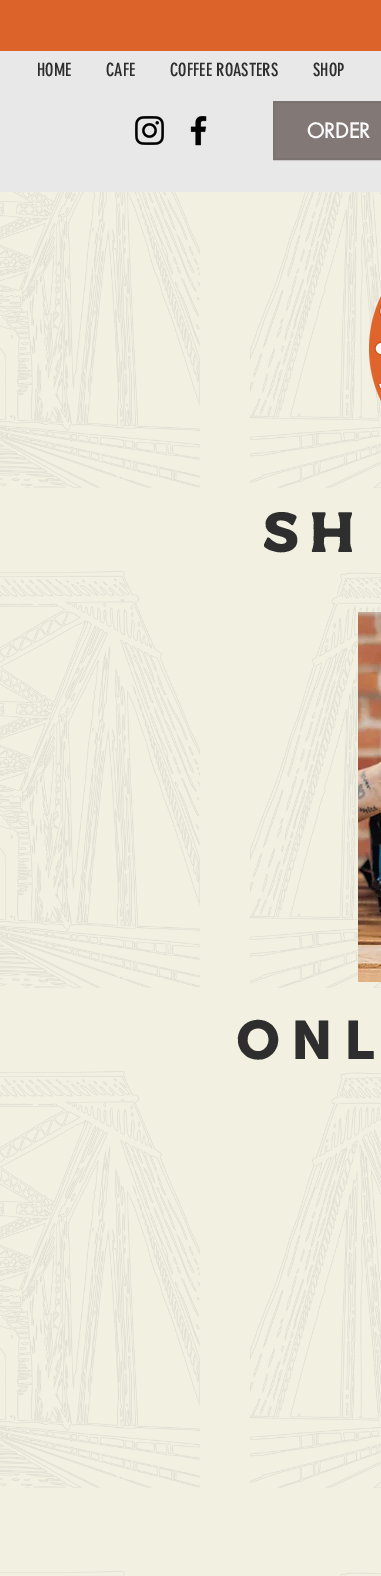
%!PS-Adobe-3.0
%%BoundingBox: 0 0 381 1576
%%LanguageLevel: 3
%%Pages: 1
%%EndComments
%%BeginProlog
/setink { dup -16 bitshift 255 div exch dup -8 bitshift 255 and 255 div exch 255 and 255 div setrgbcolor } def
/usefont { [ exch dup neg 0 0 3 -1 roll 0 0 ] selectfont } def
/drawimage { 5 dict begin { /h /w /y /x /name } { exch def } forall
  gsave x y translate w h scale
  w h 8 [w 0 0 h 0 0] name (r) file false 3 colorimage grestore end } def
%%EndProlog
%%BeginSetup
<< /PageSize [381 1576] >> setpagedevice
%%EndSetup
%%Page: 1 1
0 1576 translate 1 -1 scale
4 setmiterlimit
16#F2F0E1 setink
0 0 381 1576 rectfill
16#E8E8E8 setink
0 51 381 141 rectfill
16#DC632A setink
0 0 381 51 rectfill
/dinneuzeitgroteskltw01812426-Regular 18 usefont
16#2F2E2E setink
[
    [(HOME) 37 76]
    [(CAFE) 106 76]
    [(COFFEE ROASTERS) 170 76]
    [(SHOP) 313 76]
] { aload pop moveto show } forall
(img1.raw) 135 116 29 29 drawimage
(img2.raw) 190 116 17 30 drawimage
16#827876 setink
274 102 moveto 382 102 lineto 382 159 lineto 274 159 lineto closepath gsave fill grestore
16#7B736F setink
2 setlinewidth
stroke
/futura-Bold 20 usefont
16#FAFAFA setink
307 138 moveto (ORDER) show
(img5.raw) 0 192 381 1384 drawimage
(img3.raw) 369 296 12 105 drawimage
/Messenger-Regular 57 usefont
16#2F2E2E setink
263 552 moveto 9 0 (SH) ashow
(img4.raw) 358 612 23 370 drawimage
/MuseoSans-Bold 54 usefont
236 1059 moveto 11 0 (ONL) ashow
showpage
%%EOF
